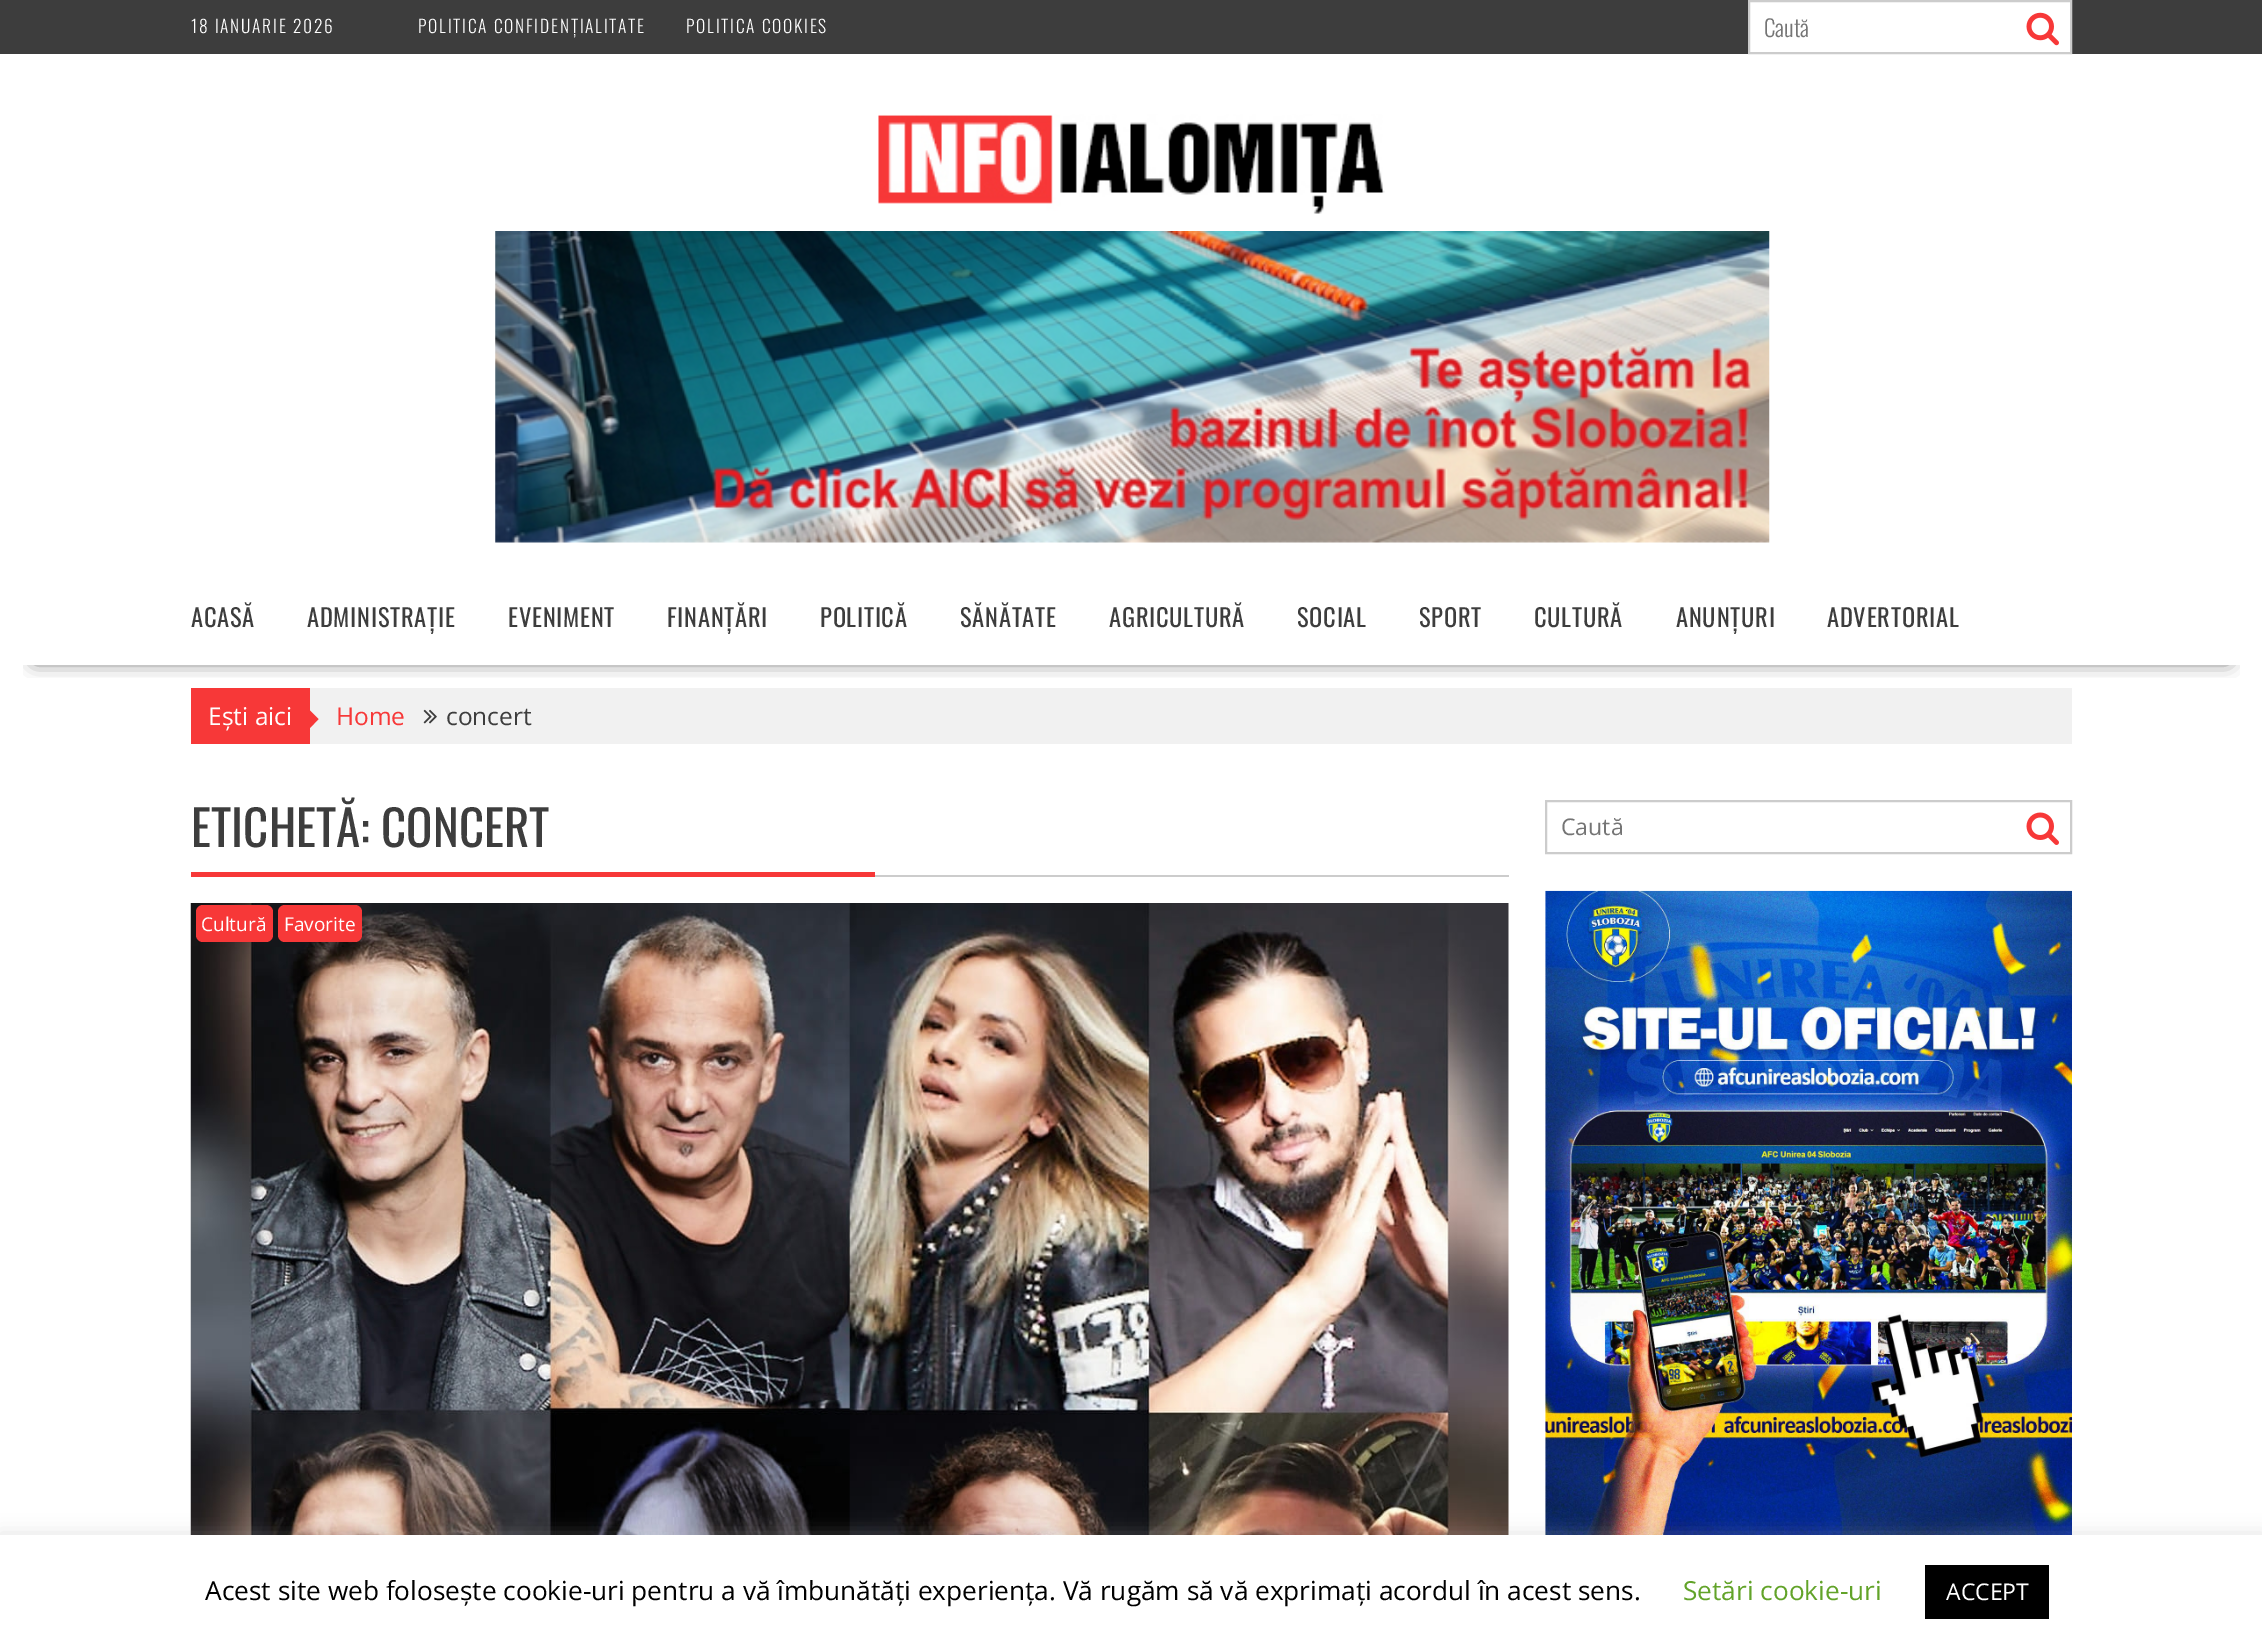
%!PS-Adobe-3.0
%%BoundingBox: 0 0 2262 1648
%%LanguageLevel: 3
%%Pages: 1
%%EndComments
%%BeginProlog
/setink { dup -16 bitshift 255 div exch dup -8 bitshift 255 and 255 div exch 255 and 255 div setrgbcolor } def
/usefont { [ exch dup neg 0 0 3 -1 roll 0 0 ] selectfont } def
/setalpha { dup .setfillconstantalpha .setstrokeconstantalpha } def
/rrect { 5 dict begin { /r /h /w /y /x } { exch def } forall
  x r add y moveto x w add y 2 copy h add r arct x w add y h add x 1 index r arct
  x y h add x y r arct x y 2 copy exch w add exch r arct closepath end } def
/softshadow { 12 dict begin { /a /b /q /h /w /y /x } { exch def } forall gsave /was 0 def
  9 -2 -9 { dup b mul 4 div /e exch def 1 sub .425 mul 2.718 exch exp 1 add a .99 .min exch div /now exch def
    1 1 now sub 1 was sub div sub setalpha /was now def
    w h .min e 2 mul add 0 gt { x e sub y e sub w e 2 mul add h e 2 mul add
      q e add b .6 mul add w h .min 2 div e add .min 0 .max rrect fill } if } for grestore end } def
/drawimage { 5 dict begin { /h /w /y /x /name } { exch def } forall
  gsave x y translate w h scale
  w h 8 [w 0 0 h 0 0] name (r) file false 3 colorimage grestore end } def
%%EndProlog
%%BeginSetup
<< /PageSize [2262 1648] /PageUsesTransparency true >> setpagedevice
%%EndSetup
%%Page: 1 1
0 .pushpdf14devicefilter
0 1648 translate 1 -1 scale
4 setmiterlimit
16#FFFFFF setink
0 0 2262 1648 rectfill
16#3D3D3D setink
0 0 2262 54 rectfill
/Oswald-Light 17.5 usefont
16#FFFFFF setink
191 33 moveto 1.75 0 (18 IANUARIE 2026) ashow
418 33 moveto 1.75 0 (POLITICA CONFIDENȚIALITATE) ashow
686 33 moveto 1.75 0 (POLITICA COOKIES) ashow
1749 1 moveto 2071 1 lineto 2071 53 lineto 1749 53 lineto closepath gsave fill grestore
16#CCCCCC setink
2 setlinewidth
stroke
/Oswald-Light 23 usefont
16#757575 setink
1764 37 moveto (Caută) show
(img1.raw) 2026 12 33 34 drawimage
(img2.raw) 878 114 507 100 drawimage
(img3.raw) 495 231 1275 312 drawimage
16#F1F1F1 setink
310 688 1762 56 rectfill
gsave
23 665 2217 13 rectclip
16#000000 setink
35 639 2193 21 0 9.5 0.75 softshadow
grestore
/Oswald-Regular 24.5 usefont
16#3D3D3D setink
191 627 moveto 0.75 0 (ACASĂ) ashow
307 627 moveto 0.75 0 (ADMINISTRAȚIE) ashow
508 627 moveto 0.75 0 (EVENIMENT) ashow
667 627 moveto 0.75 0 (FINANȚĂRI) ashow
820 627 moveto 0.75 0 (POLITICĂ) ashow
960 627 moveto 0.75 0 (SĂNĂTATE) ashow
1109 627 moveto 0.75 0 (AGRICULTURĂ) ashow
1297 627 moveto 0.75 0 (SOCIAL) ashow
1419 627 moveto 0.75 0 (SPORT) ashow
1534 627 moveto 0.75 0 (CULTURĂ) ashow
1676 627 moveto 0.75 0 (ANUNȚURI) ashow
1827 627 moveto 0.75 0 (ADVERTORIAL) ashow
16#F73838 setink
191 688 119 56 rectfill
/OpenSans-Regular 24.5 usefont
16#FFFFFF setink
208 725 moveto (Ești aici) show
16#F73838 setink
310 728 moveto 310 710.5 lineto 318.5 719 lineto closepath fill
336 725 moveto (Home) show
(img4.raw) 423 709 14 15 drawimage
16#3D3D3D setink
446 725 moveto (concert) show
16#CCCCCC setink
875 875 634 2 rectfill
/Oswald-Regular 49 usefont
16#3D3D3D setink
191 847 moveto (ETICHETĂ: CONCERT) show
16#F73838 setink
191 872 684 5 rectfill
(img5.raw) 190 903 1319 632 drawimage
196 905 77 37 7 rrect fill
/OpenSans-Regular 19 usefont
16#FFFFFF setink
201 931 moveto (Cultură) show
16#F73838 setink
278 905 84 37 7 rrect fill
16#FFFFFF setink
284 931 moveto (Favorite) show
16#CCCCCC setink
1546 801 525 52 rectstroke
/OpenSans-Regular 23 usefont
16#757575 setink
1561 835 moveto (Caută) show
(img6.raw) 2026 812 33 33 drawimage
(img7.raw) 1545 890 527 645 drawimage
16#ACABAB setink
0 1533 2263 114 0 9 0.3 softshadow
16#FFFFFF setink
0 1535 2262 113 rectfill
/OpenSans-Regular 26.25 usefont
16#000000 setink
205 1600 moveto (Acest site web folosește cookie-uri pentru a vă îmbunătăți experiența. Vă rugăm să vă exprimați acordul în acest sens.) show
16#62A329 setink
1683 1600 moveto (Setări cookie-uri) show
16#000000 setink
1925 1565 124 54 rectfill
/OpenSans-Regular 23 usefont
16#FFFFFF setink
1946 1600 moveto (ACCEPT) show
.poppdf14devicefilter showpage
%%EOF
